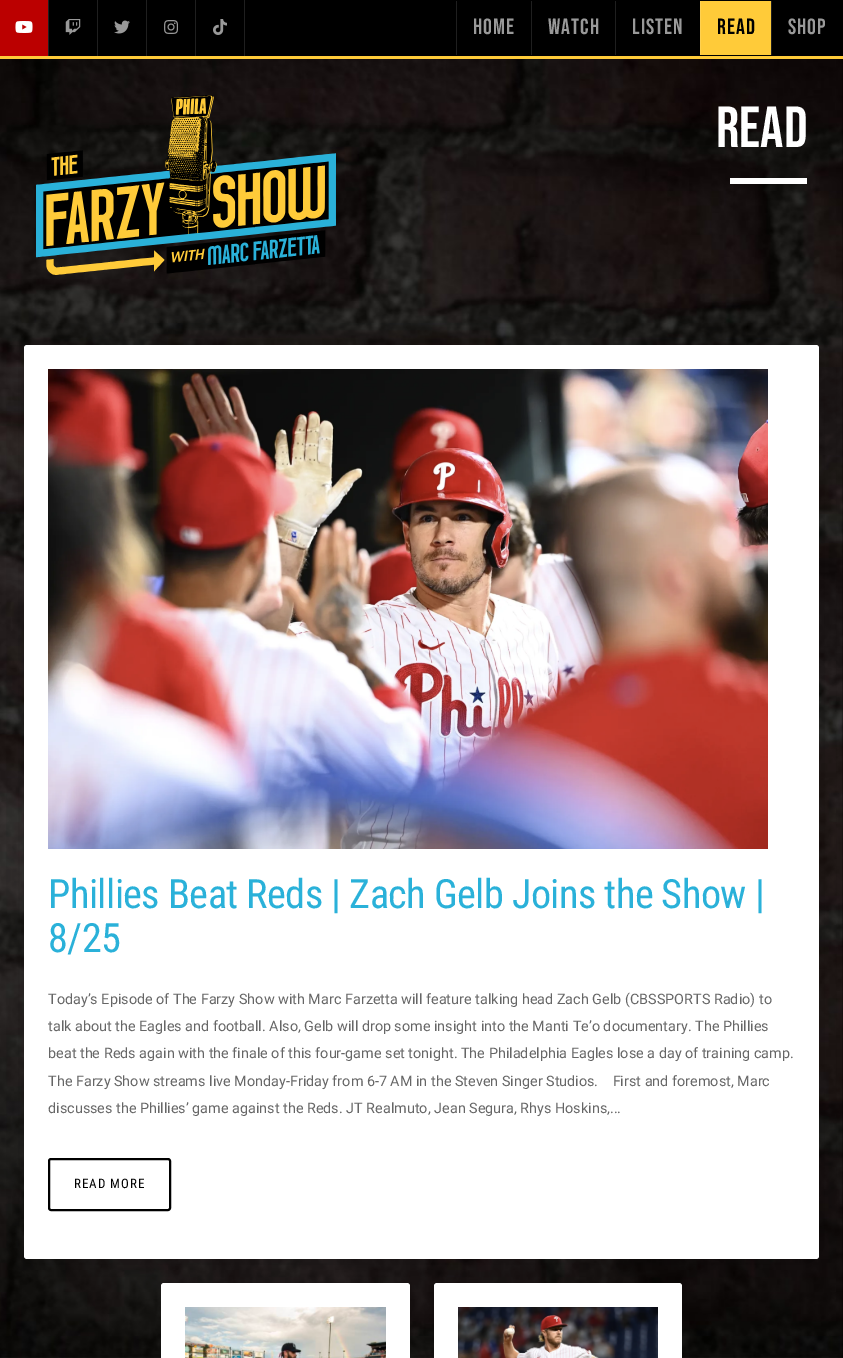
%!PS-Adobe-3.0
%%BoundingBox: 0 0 843 1358
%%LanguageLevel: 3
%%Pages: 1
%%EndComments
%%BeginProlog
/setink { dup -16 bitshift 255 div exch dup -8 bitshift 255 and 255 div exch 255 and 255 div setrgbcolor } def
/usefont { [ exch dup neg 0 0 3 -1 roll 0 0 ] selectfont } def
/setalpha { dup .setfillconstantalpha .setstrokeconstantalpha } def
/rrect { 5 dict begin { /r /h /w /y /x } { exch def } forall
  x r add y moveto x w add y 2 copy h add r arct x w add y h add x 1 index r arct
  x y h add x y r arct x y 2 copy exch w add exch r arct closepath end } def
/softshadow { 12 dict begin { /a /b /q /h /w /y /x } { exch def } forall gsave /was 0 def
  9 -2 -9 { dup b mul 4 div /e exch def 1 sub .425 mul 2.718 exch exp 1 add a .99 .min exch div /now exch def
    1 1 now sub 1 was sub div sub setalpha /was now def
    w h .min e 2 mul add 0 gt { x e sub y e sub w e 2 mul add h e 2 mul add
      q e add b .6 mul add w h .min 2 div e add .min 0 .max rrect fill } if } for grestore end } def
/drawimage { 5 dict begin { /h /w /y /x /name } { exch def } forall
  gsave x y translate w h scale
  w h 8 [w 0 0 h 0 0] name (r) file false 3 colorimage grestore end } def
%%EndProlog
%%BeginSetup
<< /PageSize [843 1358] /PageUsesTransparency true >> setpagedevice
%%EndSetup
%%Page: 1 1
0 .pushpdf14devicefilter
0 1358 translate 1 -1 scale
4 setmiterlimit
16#FFFFFF setink
0 0 843 1358 rectfill
[
    [49 0 794 56 16#000000]
    [0 56 843 3 16#FFCB39]
    [48 0 1 56 16#1F1F1F]
    [0 0 48 56 16#BB0000]
] { aload pop setink rectfill } forall
(img1.raw) 15 21 18 12 drawimage
16#1F1F1F setink
97 0 1 56 rectfill
(img2.raw) 65 19 16 16 drawimage
146 0 1 56 rectfill
(img3.raw) 114 20 16 14 drawimage
195 0 1 56 rectfill
(img4.raw) 164 20 14 14 drawimage
244 0 1 56 rectfill
(img5.raw) 213 19 14 16 drawimage
456 1 1 54 rectfill
/BebasNeue-Regular 22 usefont
16#999999 setink
473 34 moveto 1 0 (HOME) ashow
16#1F1F1F setink
531 1 1 54 rectfill
16#999999 setink
548 34 moveto 1 0 (WATCH) ashow
16#1F1F1F setink
615 1 1 54 rectfill
16#999999 setink
632 34 moveto 1 0 (LISTEN) ashow
16#FFCB39 setink
701 1 70 54 rectfill
16#FFD151 setink
700 1 1 54 rectfill
16#000000 setink
717 34 moveto 1 0 (READ) ashow
16#1F1F1F setink
771 1 1 54 rectfill
16#999999 setink
788 34 moveto 1 0 (SHOP) ashow
(img10.raw) 0 59 843 1299 drawimage
(img6.raw) 36 95 300 180 drawimage
/BebasNeue-Regular 58 usefont
16#FFFFFF setink
716 147 moveto (READ) show
730 178 77 6 rectfill
16#000000 setink
24 345 795 914 3 24 0.24 softshadow
16#FFFFFF setink
24 345 795 914 3 rrect fill
(img7.raw) 48 369 720 480 drawimage
/RobotoCondensed-Regular 40.3 usefont
16#2AB1D9 setink
48 908 moveto -0.6 0 (Phillies Beat Reds | Zach Gelb Joins the Show |) ashow
48 952 moveto -0.6 0 (8/25) ashow
/Roboto-Regular 14.4 usefont
16#666666 setink
[
    [(Today’s Episode of The Farzy Show with Marc Farzetta will feature talking head Zach Gelb \(CBSSPORTS Radio\) to) 48 1004]
    [(talk about the Eagles and football. Also, Gelb will drop some insight into the Manti Te’o documentary. The Phillies) 48 1031]
    [(beat the Reds again with the finale of this four-game set tonight. The Philadelphia Eagles lose a day of training camp.) 48 1058]
    [(The Farzy Show streams live Monday-Friday from 6-7 AM in the Steven Singer Studios.    First and foremost, Marc) 48 1086]
    [(discusses the Phillies’ game against the Reds. JT Realmuto, Jean Segura, Rhys Hoskins,...) 48 1113]
] { aload pop moveto show } forall
16#000000 setink
2 setlinewidth
49 1159 121 51 2 rrect stroke
/RobotoCondensed-Regular 13 usefont
74 1188 moveto 1 0 (READ MORE) ashow
16#FFFFFF setink
161 1283 249 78 3 rrect fill
(img8.raw) 185 1307 201 51 drawimage
434 1283 248 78 3 rrect fill
(img9.raw) 458 1307 200 51 drawimage
.poppdf14devicefilter showpage
%%EOF
